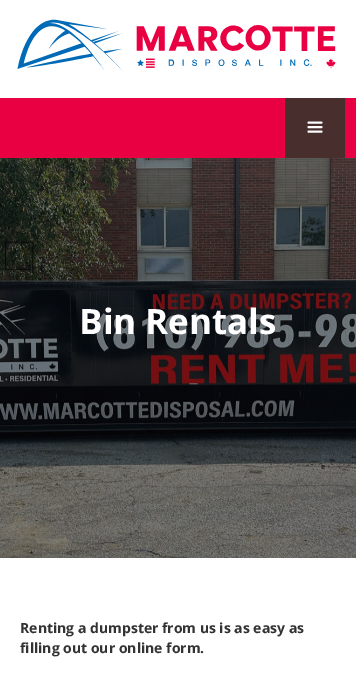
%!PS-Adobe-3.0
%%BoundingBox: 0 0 356 675
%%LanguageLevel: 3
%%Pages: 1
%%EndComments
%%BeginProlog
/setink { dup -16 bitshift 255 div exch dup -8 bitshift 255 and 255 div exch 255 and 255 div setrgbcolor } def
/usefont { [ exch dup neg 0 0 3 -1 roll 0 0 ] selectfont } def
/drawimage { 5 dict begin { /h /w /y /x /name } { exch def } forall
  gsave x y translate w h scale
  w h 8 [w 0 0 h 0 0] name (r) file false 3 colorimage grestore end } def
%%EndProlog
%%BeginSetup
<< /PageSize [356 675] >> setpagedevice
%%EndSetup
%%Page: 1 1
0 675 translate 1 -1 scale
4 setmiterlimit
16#FFFFFF setink
0 0 356 675 rectfill
(img1.raw) 17 19 319 52 drawimage
16#E80042 setink
0 98 356 60 rectfill
16#492E2E setink
285 98 60 60 rectfill
(img2.raw) 307 121 16 12 drawimage
(img3.raw) 0 158 356 400 drawimage
/OpenSans-Bold 35 usefont
16#FFFFFF setink
79 334 moveto (Bin Rentals) show
/OpenSans-Bold 14 usefont
16#333333 setink
20 633 moveto (Renting a dumpster from us is as easy as) show
20 653 moveto (filling out our online form.) show
showpage
%%EOF
